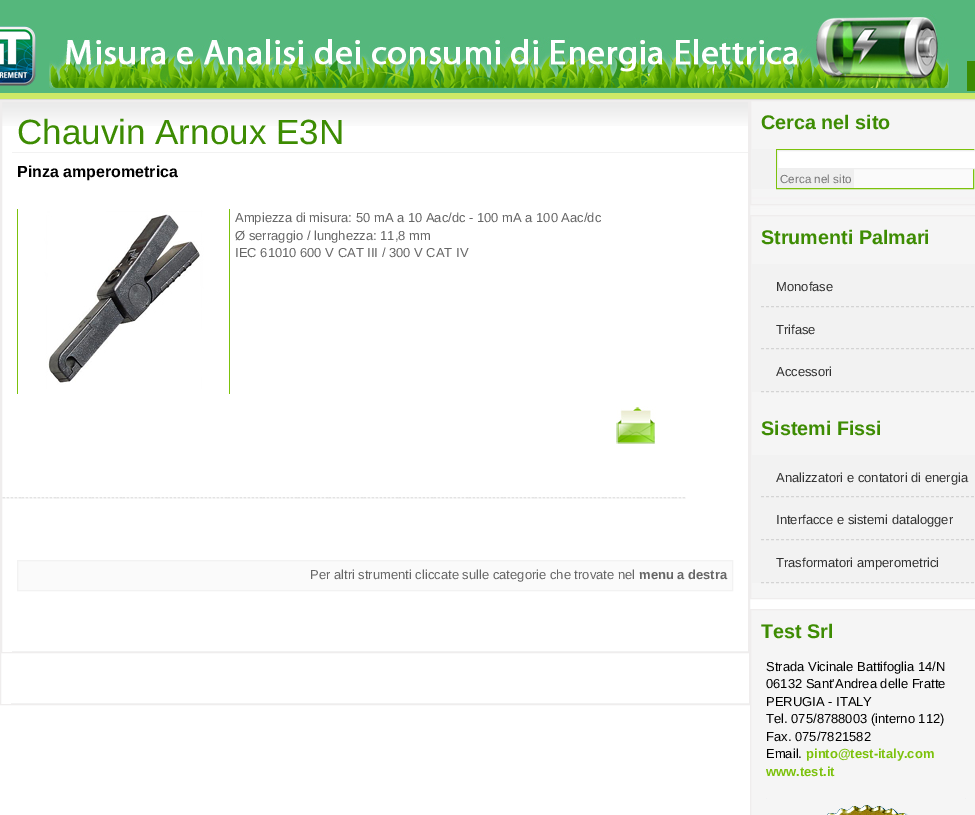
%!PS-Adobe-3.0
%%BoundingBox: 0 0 975 815
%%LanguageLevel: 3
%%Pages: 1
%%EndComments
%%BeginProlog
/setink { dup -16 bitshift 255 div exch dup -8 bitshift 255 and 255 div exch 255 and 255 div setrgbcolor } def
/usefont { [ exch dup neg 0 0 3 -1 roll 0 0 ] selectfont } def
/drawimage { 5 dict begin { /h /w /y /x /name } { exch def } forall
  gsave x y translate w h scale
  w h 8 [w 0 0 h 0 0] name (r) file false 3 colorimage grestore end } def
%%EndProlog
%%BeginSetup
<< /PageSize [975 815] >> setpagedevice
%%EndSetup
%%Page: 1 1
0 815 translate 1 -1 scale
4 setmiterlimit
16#FFFFFF setink
0 0 975 815 rectfill
(img1.raw) 0 0 975 215 drawimage
(img2.raw) 0 24 38 64 drawimage
(img3.raw) 49 5 900 83 drawimage
16#3D8C02 setink
967 61 8 30 rectfill
16#EFEDED setink
0.5 100.5 749 604 rectstroke
16#FFFFFF setink
2 126 746 89 rectfill
(img4.raw) 2 102 746 24 drawimage
16#EFEDED setink
1.5 101.5 747 551 rectstroke
16#F2F2F2 setink
12 152 736 1 rectfill
/LiberationSans-Regular 35 usefont
16#3D8C02 setink
17 144 moveto (Chauvin Arnoux E3N) show
/LiberationSans-Bold 16 usefont
16#000000 setink
17 177 moveto (Pinza amperometrica) show
16#7CC20C setink
17 209 1 186 rectfill
16#FFFFFF setink
17 394 1 1 rectfill
(img5.raw) 44 209 160 180 drawimage
16#7CC20C setink
229 209 1 186 rectfill
16#FFFFFF setink
229 394 1 1 rectfill
/LiberationSans-Regular 13 usefont
16#666666 setink
[
    [(Ampiezza di misura: 50 mA a 10 Aac/dc - 100 mA a 100 Aac/dc) 235 222]
    [(Ø serraggio / lunghezza: 11,8 mm) 235 240]
    [(IEC 61010 600 V CAT III / 300 V CAT IV) 235 257]
] { aload pop moveto show } forall
(img6.raw) 616 406 40 38 drawimage
/LiberationSans-Regular 11.68 usefont
16#CCCCCC setink
2 501 moveto (--------------------------------------------------------------------------------------------------------------------------------------------------------------------------------) show
16#FAFAFA setink
17.5 560.5 moveto 732.5 560.5 lineto 732.5 590.5 lineto 17.5 590.5 lineto closepath gsave fill grestore
16#F2F2F2 setink
stroke
/LiberationSans-Regular 13 usefont
16#666666 setink
310 579 moveto (Per altri strumenti cliccate sulle categorie che trovate nel) show
/LiberationSans-Bold 13 usefont
639 579 moveto (menu a destra) show
[
    [12 651 736 1 16#F2F2F2]
    [11 703 738 1 16#F2F2F2]
    [751 101 224 96 16#F5F5F5]
] { aload pop setink rectfill } forall
16#EFEDED setink
750.5 100.5 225 104 rectstroke
/LiberationSans-Bold 19.75 usefont
16#3D8C02 setink
761 129 moveto (Cerca nel sito) show
16#F2F2F2 setink
751 149 224 40 rectfill
16#FAFAFA setink
854 169 119 19 rectfill
16#7CC20C setink
776.5 149.5 197 39 rectstroke
16#FFFFFF setink
777.5 150.5 moveto 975.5 150.5 lineto 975.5 168.5 lineto 777.5 168.5 lineto closepath gsave fill grestore
16#EEEEEE setink
stroke
16#EFEFEF setink
777 169 77 19 rectfill
/LiberationSans-Regular 11.68 usefont
16#777777 setink
780 183 moveto (Cerca nel sito) show
16#F5F5F5 setink
750.5 215.5 moveto 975.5 215.5 lineto 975.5 598.5 lineto 750.5 598.5 lineto closepath gsave fill grestore
16#EFEDED setink
stroke
/LiberationSans-Bold 19.75 usefont
16#3D8C02 setink
761 244 moveto (Strumenti Palmari) show
16#F2F2F2 setink
751 264 224 128 rectfill
16#D4D4D4 setink
[3 2] 0 setdash
761 306.5 moveto 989 306.5 lineto stroke
/LiberationSans-Regular 13 usefont
16#333333 setink
776 291 moveto (Monofase) show
16#D4D4D4 setink
761 348.5 moveto 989 348.5 lineto stroke
16#333333 setink
776 334 moveto (Trifase) show
16#D4D4D4 setink
761 391.5 moveto 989 391.5 lineto stroke
16#333333 setink
776 376 moveto (Accessori) show
/LiberationSans-Bold 19.75 usefont
16#3D8C02 setink
761 435 moveto (Sistemi Fissi) show
16#F2F2F2 setink
751 455 224 128 rectfill
16#D4D4D4 setink
761 496.5 moveto 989 496.5 lineto stroke
/LiberationSans-Regular 13 usefont
16#333333 setink
776 482 moveto (Analizzatori e contatori di energia) show
16#D4D4D4 setink
761 539.5 moveto 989 539.5 lineto stroke
16#333333 setink
776 524 moveto (Interfacce e sistemi datalogger) show
16#D4D4D4 setink
761 582.5 moveto 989 582.5 lineto stroke
16#333333 setink
776 567 moveto (Trasformatori amperometrici) show
16#F5F5F5 setink
750.5 609.5 moveto 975.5 609.5 lineto 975.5 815.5 lineto 750.5 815.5 lineto closepath gsave fill grestore
16#EFEDED setink
[] 0 setdash
stroke
/LiberationSans-Bold 19.75 usefont
16#3D8C02 setink
761 638 moveto (Test Srl) show
/LiberationSans-Regular 13 usefont
16#000000 setink
[
    [(Strada Vicinale Battifoglia 14/N) 766 671]
    [(06132 Sant'Andrea delle Fratte) 766 688]
    [(PERUGIA - ITALY) 766 706]
    [(Tel. 075/8788003 \(interno 112\)) 766 723]
    [(Fax. 075/7821582) 766 741]
    [(Email.) 766 758]
] { aload pop moveto show } forall
/LiberationSans-Bold 13 usefont
16#7CC20C setink
806 758 moveto (pinto@test-italy.com) show
766 776 moveto (www.test.it) show
16#005078 setink
766 798 200 17 rectfill
(img7.raw) 766 798 200 17 drawimage
showpage
%%EOF
